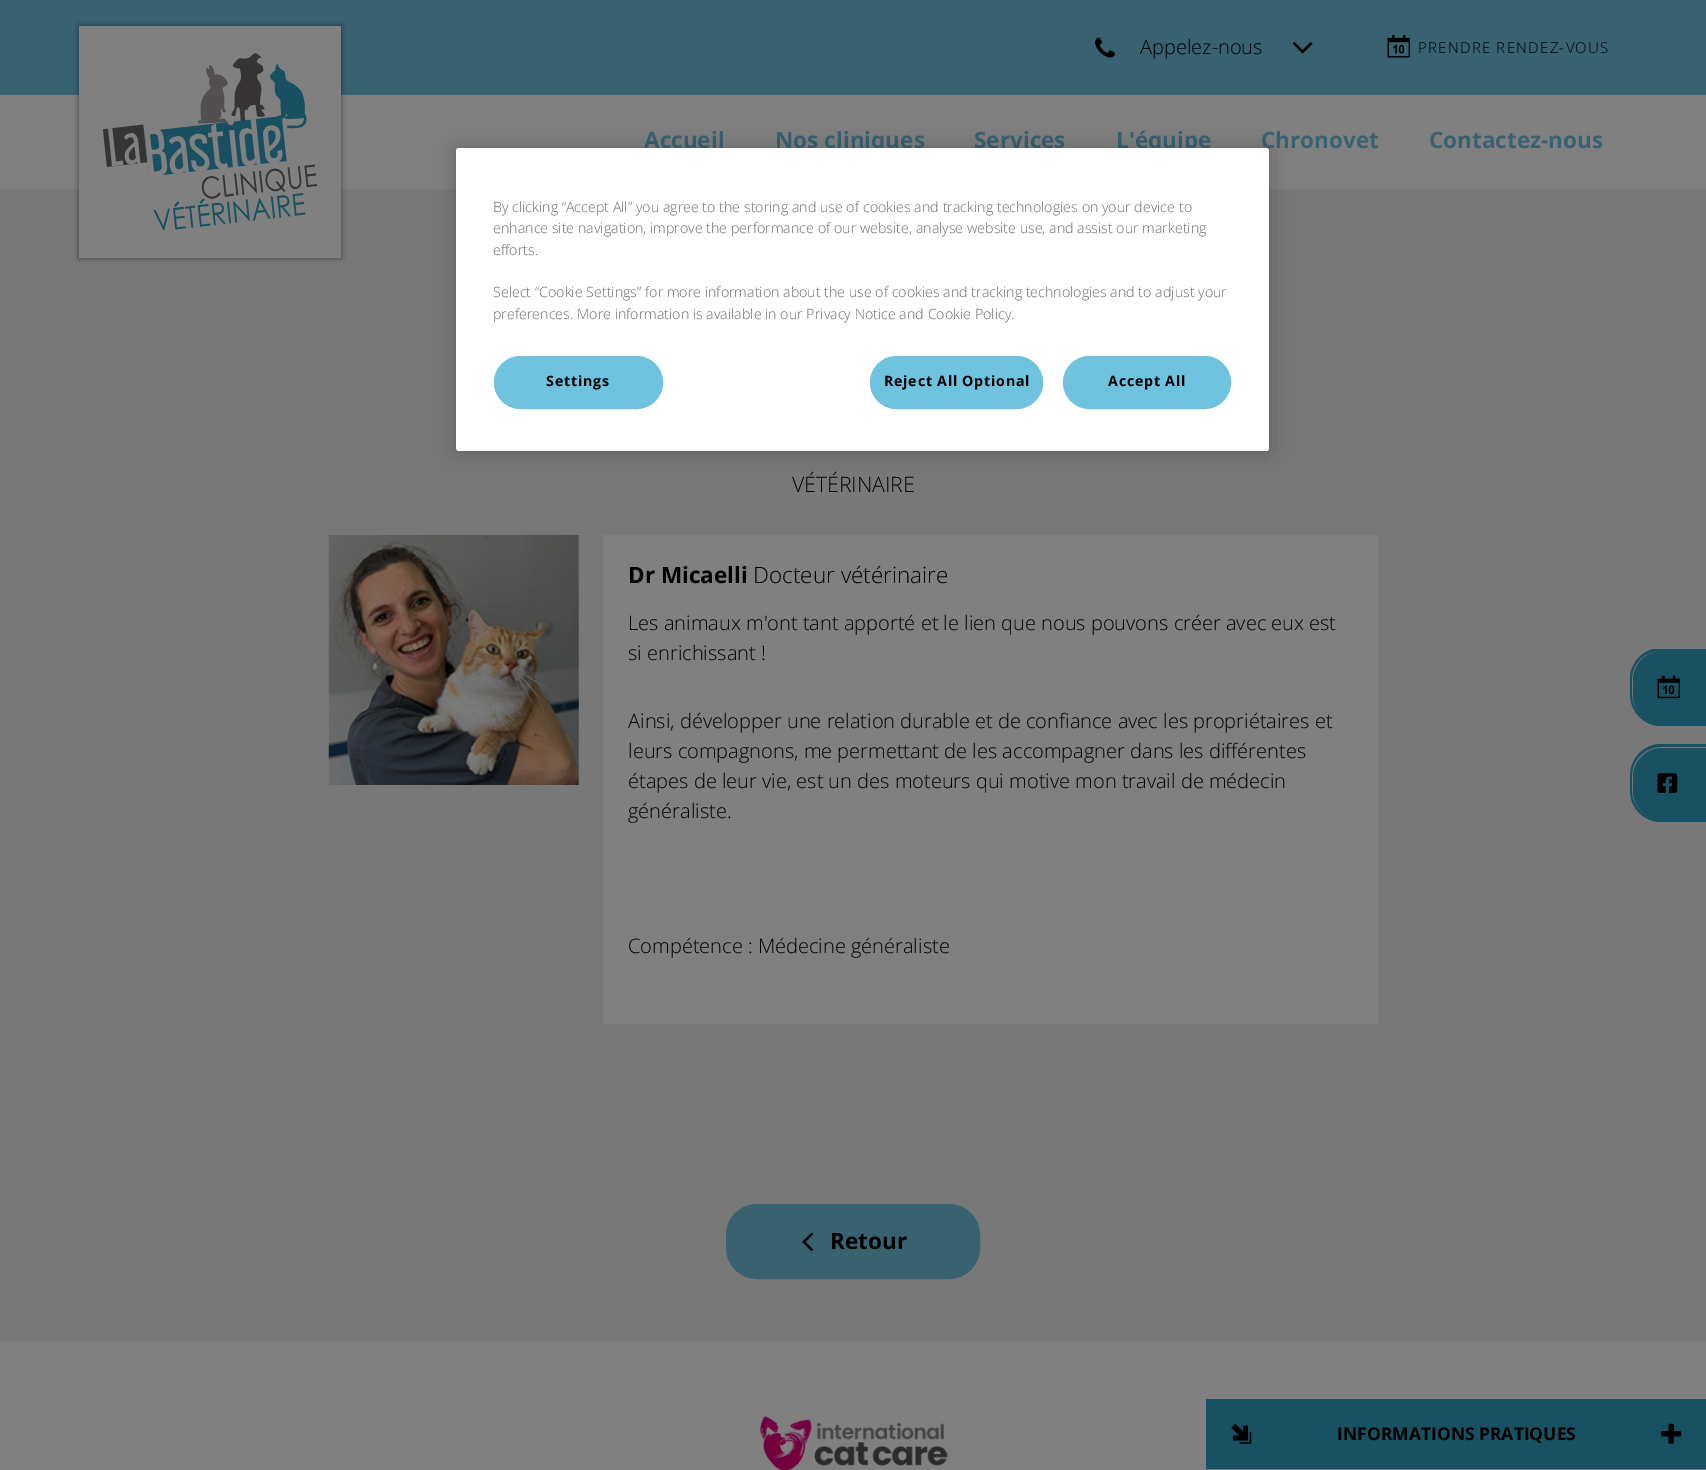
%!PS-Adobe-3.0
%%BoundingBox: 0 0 1706 1470
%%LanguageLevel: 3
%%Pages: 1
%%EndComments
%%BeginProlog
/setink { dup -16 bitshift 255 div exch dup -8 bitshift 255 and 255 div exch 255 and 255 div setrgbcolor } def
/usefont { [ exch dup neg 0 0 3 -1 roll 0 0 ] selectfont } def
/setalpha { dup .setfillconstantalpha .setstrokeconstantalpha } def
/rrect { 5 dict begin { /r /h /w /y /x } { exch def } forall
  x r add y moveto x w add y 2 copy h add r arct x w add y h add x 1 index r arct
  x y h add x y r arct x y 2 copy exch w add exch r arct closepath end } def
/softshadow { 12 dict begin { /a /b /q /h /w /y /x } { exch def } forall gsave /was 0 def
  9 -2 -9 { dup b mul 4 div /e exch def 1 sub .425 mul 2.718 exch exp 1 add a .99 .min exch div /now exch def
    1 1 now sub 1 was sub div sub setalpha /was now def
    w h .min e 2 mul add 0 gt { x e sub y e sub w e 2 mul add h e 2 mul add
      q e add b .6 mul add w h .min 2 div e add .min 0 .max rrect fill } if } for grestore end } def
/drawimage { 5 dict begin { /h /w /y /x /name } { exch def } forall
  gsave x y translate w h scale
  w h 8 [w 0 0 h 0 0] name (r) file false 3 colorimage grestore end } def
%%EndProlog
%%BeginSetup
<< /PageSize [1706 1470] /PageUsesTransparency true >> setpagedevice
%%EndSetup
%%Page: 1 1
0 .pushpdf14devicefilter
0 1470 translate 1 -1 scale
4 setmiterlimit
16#808080 setink
0 0 1706 1470 rectfill
16#386270 setink
0 0 1706 95 rectfill
16#787878 setink
0 189 1706 1152 rectfill
16#000000 setink
79 26 262 232 0 3 0.5 softshadow
16#808080 setink
79 26 262 232 rectfill
(img1.raw) 102 53 216 178 drawimage
(img2.raw) 1095 37 20 21 drawimage
/OpenSans-Light 20 usefont
16#000000 setink
1140 54 moveto (Appelez-nous) show
(img3.raw) 1292 42 21 12 drawimage
(img4.raw) 1387 35 23 23 drawimage
/OpenSans-Light 15 usefont
1418 53 moveto 1.25 0 (PRENDRE RENDEZ-VOUS) ashow
/OpenSans-Bold 22.5 usefont
16#386270 setink
[
    [(Accueil) 644 148]
    [(Nos cliniques) 775 148]
    [(Services) 974 148]
    [(L'équipe) 1116 148]
    [(Chronovet) 1261 148]
    [(Contactez-nous) 1429 148]
] { aload pop moveto show } forall
/OpenSans-Light 21.25 usefont
16#000000 setink
792 492 moveto (VÉTÉRINAIRE) show
(img5.raw) 328 535 251 250 drawimage
16#808080 setink
603 535 775 489 rectfill
/OpenSans-Bold 22.5 usefont
16#000000 setink
628 583 moveto (Dr Micaelli) show
/OpenSans-Light 22.5 usefont
753 583 moveto (Docteur vétérinaire) show
/OpenSans-Light 20 usefont
[
    [(Les animaux m'ont tant apporté et le lien que nous pouvons créer avec eux est) 628 630]
    [(si enrichissant !) 628 660]
    [(Ainsi, développer une relation durable et de confiance avec les propriétaires et) 628 728]
    [(leurs compagnons, me permettant de les accompagner dans les différentes) 628 758]
    [(étapes de leur vie, est un des moteurs qui motive mon travail de médecin) 628 788]
    [(généraliste.) 628 818]
    [(Compétence : Médecine généraliste) 628 953]
] { aload pop moveto show } forall
16#386270 setink
727.5 1205.5 251 72 29.5 rrect gsave fill grestore
3 setlinewidth
stroke
(img6.raw) 802 1232 11 20 drawimage
/OpenSans-Bold 22.5 usefont
16#000000 setink
830 1249 moveto (Retour) show
16#185161 setink
1662 651 moveto 1706 651 lineto 1706 724 lineto 1662 724 lineto 1646 724 1633 711 1633 695 curveto 1633 680 lineto 1633 664 1646 651 1662 651 curveto closepath fill
gsave
1630 649 76 174 rectclip
1661 648 moveto 1706 648 lineto 1706 726 lineto 1661 726 lineto 1644 726 1630 712 1630 694 curveto 1630 679 lineto 1630 662 1644 648 1661 648 curveto closepath 1661 651 moveto 1706 651 lineto 1706 723 lineto 1661 723 lineto 1645 723 1632 710 1632 694 curveto 1632 679 lineto 1632 663 1645 651 1661 651 curveto closepath eofill
grestore
(img7.raw) 1657 675 23 24 drawimage
1662 748 moveto 1706 748 lineto 1706 820 lineto 1662 820 lineto 1646 820 1633 807 1633 791 curveto 1633 777 lineto 1633 761 1646 748 1662 748 curveto closepath fill
1661 744 moveto 1706 744 lineto 1706 822 lineto 1661 822 lineto 1644 822 1630 808 1630 791 curveto 1630 776 lineto 1630 758 1644 744 1661 744 curveto closepath 1661 747 moveto 1706 747 lineto 1706 819 lineto 1661 819 lineto 1645 819 1632 807 1632 791 curveto 1632 776 lineto 1632 760 1645 747 1661 747 curveto closepath eofill
(img8.raw) 1657 773 21 20 drawimage
(img9.raw) 760 1416 188 54 drawimage
1206 1399 500 70 rectfill
(img10.raw) 1231 1423 21 21 drawimage
/OpenSans-Bold 17.5 usefont
16#000000 setink
1337 1440 moveto (INFORMATIONS PRATIQUES) show
(img11.raw) 1661 1423 21 21 drawimage
16#747474 setink
1206 1469 500 1 rectfill
16#000000 setink
456 148 813 303 3 11 0.2 softshadow
16#FFFFFF setink
456 148 813 303 3 rrect fill
/OpenSans-Light 14.23 usefont
16#696969 setink
[
    [(By clicking “Accept All” you agree to the storing and use of cookies and tracking technologies on your device to) 493 212]
    [(enhance site navigation, improve the performance of our website, analyse website use, and assist our marketing) 493 233]
    [(efforts.) 493 255]
    [(Select “Cookie Settings” for more information about the use of cookies and tracking technologies and to adjust your) 493 297]
    [(preferences. More information is available in our Privacy Notice and Cookie Policy.) 493 319]
] { aload pop moveto show } forall
16#6FC3DF setink
494.5 356.5 168 52 26 rrect gsave fill grestore
1 setlinewidth
stroke
/OpenSans-Bold 14.23 usefont
16#000000 setink
546 386 moveto 0.75 0 (Settings) ashow
16#6FC3DF setink
870.5 356.5 172 52 26 rrect gsave fill grestore
stroke
16#000000 setink
884 386 moveto 0.75 0 (Reject All Optional) ashow
16#6FC3DF setink
1063.5 356.5 167 52 26 rrect gsave fill grestore
stroke
16#000000 setink
1108 386 moveto 0.75 0 (Accept All) ashow
.poppdf14devicefilter showpage
%%EOF
